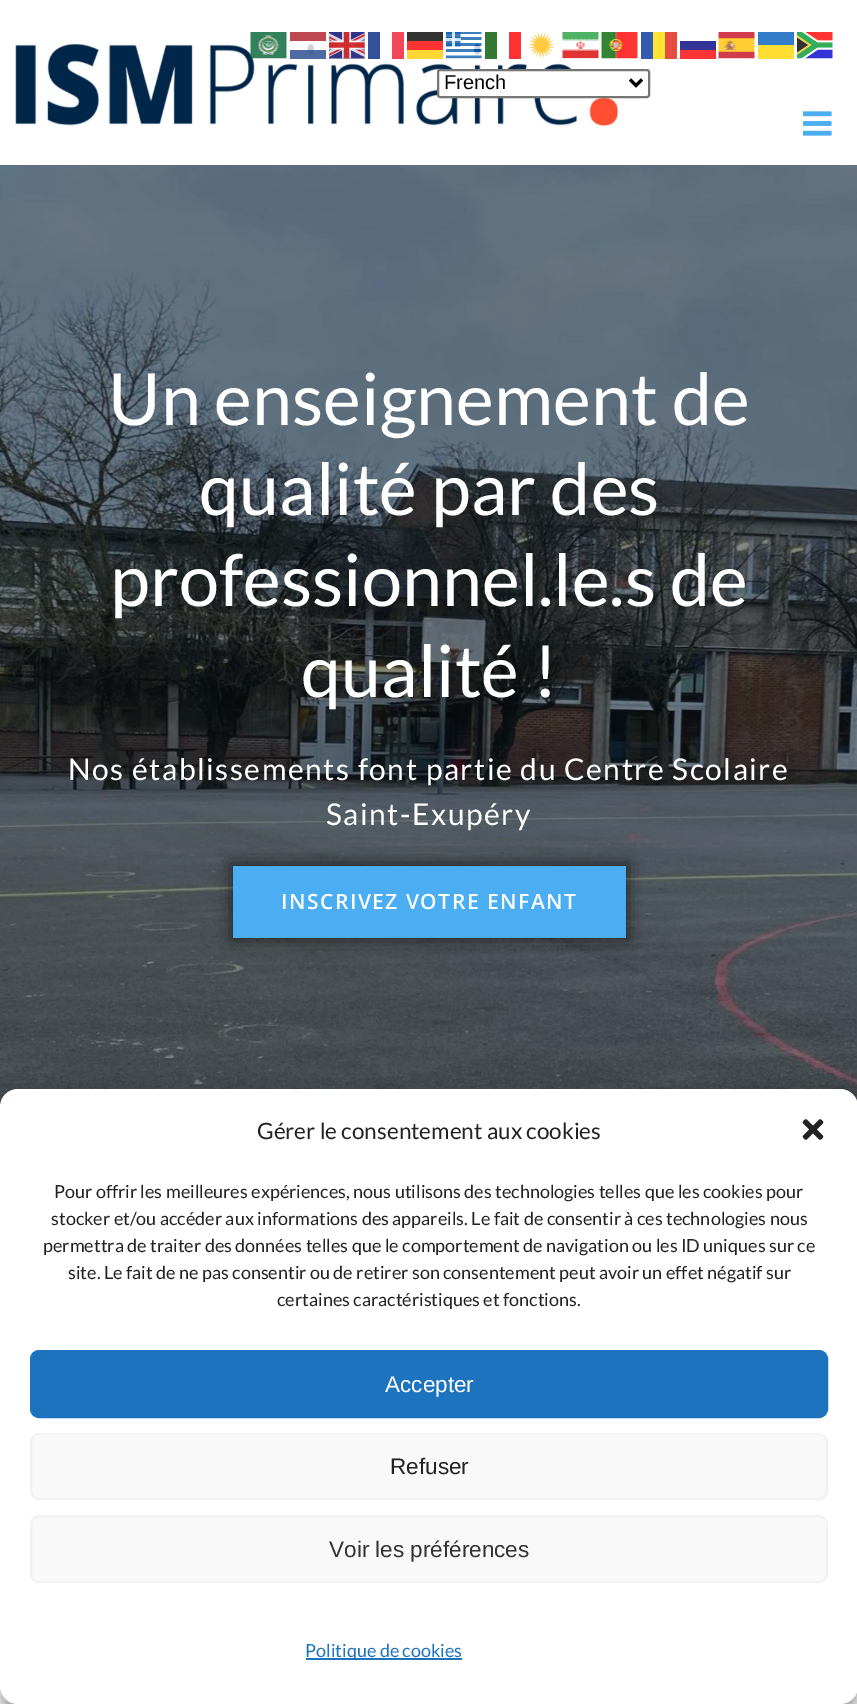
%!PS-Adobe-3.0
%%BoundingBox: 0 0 857 1704
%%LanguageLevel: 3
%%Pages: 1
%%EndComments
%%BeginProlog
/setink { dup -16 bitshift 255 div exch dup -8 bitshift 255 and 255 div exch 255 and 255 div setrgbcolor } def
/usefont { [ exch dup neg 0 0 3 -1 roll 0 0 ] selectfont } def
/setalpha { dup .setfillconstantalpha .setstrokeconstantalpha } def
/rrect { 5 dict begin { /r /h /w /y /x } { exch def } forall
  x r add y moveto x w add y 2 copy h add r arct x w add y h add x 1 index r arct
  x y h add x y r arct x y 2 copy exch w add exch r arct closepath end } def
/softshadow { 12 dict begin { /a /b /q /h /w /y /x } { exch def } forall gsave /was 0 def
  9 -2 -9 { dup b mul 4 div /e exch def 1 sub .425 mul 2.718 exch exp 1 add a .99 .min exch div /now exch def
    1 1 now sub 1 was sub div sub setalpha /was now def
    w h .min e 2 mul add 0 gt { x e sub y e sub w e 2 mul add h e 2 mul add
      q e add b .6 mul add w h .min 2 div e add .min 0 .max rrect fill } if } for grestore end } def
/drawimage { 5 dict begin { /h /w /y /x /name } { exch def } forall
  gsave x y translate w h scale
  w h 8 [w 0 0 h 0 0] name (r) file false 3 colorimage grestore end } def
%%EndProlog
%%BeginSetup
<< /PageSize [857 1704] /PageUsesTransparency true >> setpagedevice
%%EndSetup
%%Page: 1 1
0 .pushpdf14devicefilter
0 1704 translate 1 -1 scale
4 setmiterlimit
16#FFFFFF setink
0 0 857 1704 rectfill
(img9.raw) 15 43 603 84 drawimage
(img1.raw) 250 32 37 27 drawimage
16#BE4953 setink
290 32 36 9 rectfill
(img2.raw) 329 32 36 27 drawimage
[
    [368 32 12 27 16#335199]
    [392 32 12 27 16#F54659]
    [407 32 36 9 16#333333]
] { aload pop setink rectfill } forall
(img3.raw) 446 32 36 27 drawimage
16#337933 setink
485 32 12 27 rectfill
16#FD3333 setink
509 32 12 27 rectfill
(img4.raw) 528 32 27 27 drawimage
(img5.raw) 562 32 37 27 drawimage
(img6.raw) 601 32 37 27 drawimage
[
    [641 32 12 27 16#335AB0]
    [653 32 12 27 16#FFE533]
    [665 32 12 27 16#E54D40]
] { aload pop setink rectfill } forall
(img7.raw) 718 32 37 27 drawimage
16#337CC9 setink
758 32 36 13 rectfill
(img8.raw) 797 32 36 27 drawimage
0.8 setalpha
[
    [307 43 8 13 16#FFFFFF]
] { aload pop setink rectfill } forall
1 setalpha
[
    [407 41 36 9 16#FF3333]
    [680 41 36 9 16#343498]
    [758 45 36 14 16#FFDD33]
] { aload pop setink rectfill } forall
0.8 setalpha
[
    [290 50 36 9 16#21468B]
] { aload pop setink rectfill } forall
1 setalpha
[
    [407 50 36 9 16#FFD633]
    [680 50 36 9 16#FE3434]
] { aload pop setink rectfill } forall
16#FFFFFF setink
438 70 211 27 2 rrect gsave fill grestore
16#767676 setink
2 setlinewidth
stroke
16#000000 setink
3 setlinewidth
630 79.5 moveto 636 85.5 lineto 642 79.5 lineto stroke
/LiberationSans-Regular 20 usefont
444 89 moveto (French) show
(img10.raw) 803 111 29 25 drawimage
(img11.raw) 0 165 857 942 drawimage
/Lato-Regular 72 usefont
16#FFFFFF setink
[
    [(Un enseignement de) 108 425]
    [(qualité par des) 199 515]
    [(professionnel.le.s de) 110 606]
    [(qualité !) 301 697]
] { aload pop moveto show } forall
/Lato-Regular 30 usefont
68 780 moveto 1.5 0 (Nos établissements font partie du Centre Scolaire) ashow
326 825 moveto 1.5 0 (Saint-Exupéry) ashow
16#000000 setink
230 863 399 78 0 7.5 0.5 softshadow
16#4BAEF3 setink
233 866 393 72 rectfill
/OpenSans-SemiBold 21 usefont
16#FFFFFF setink
281 909 moveto 1.5 0 (INSCRIVEZ VOTRE ENFANT) ashow
16#000000 setink
0 1098 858 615 18 4.5 0.23 softshadow
0 1104 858 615 18 15 0.19 softshadow
16#FFFFFF setink
0 1089 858 615 18 rrect fill
/Lato-Regular 22.5 usefont
16#222222 setink
257 1139 moveto (Gérer le consentement aux cookies) show
(img12.raw) 802 1119 22 21 drawimage
/Lato-Regular 18 usefont
[
    [(Pour offrir les meilleures expériences, nous utilisons des technologies telles que les cookies pour) 54 1198]
    [(stocker et/ou accéder aux informations des appareils. Le fait de consentir à ces technologies nous) 51 1225]
    [(permettra de traiter des données telles que le comportement de navigation ou les ID uniques sur ce) 43 1252]
    [(site. Le fait de ne pas consentir ou de retirer son consentement peut avoir un effet négatif sur) 68 1279]
    [(certaines caractéristiques et fonctions.) 277 1306]
] { aload pop moveto show } forall
16#1E73BE setink
31 1351 796 66 8 rrect gsave fill grestore
2 setlinewidth
stroke
/LiberationSans-Regular 22.5 usefont
16#FFFFFF setink
385 1392 moveto (Accepter) show
16#F9F9F9 setink
31 1434 796 65 8 rrect gsave fill grestore
16#F2F2F2 setink
stroke
16#222222 setink
390 1474 moveto (Refuser) show
16#F9F9F9 setink
31 1516 796 66 8 rrect gsave fill grestore
16#F2F2F2 setink
stroke
16#333333 setink
329 1557 moveto (Voir les préférences) show
16#1E73BE setink
306 1658 156 2 rectfill
/Lato-Regular 18 usefont
305 1657 moveto (Politique de cookies) show
.poppdf14devicefilter showpage
%%EOF
